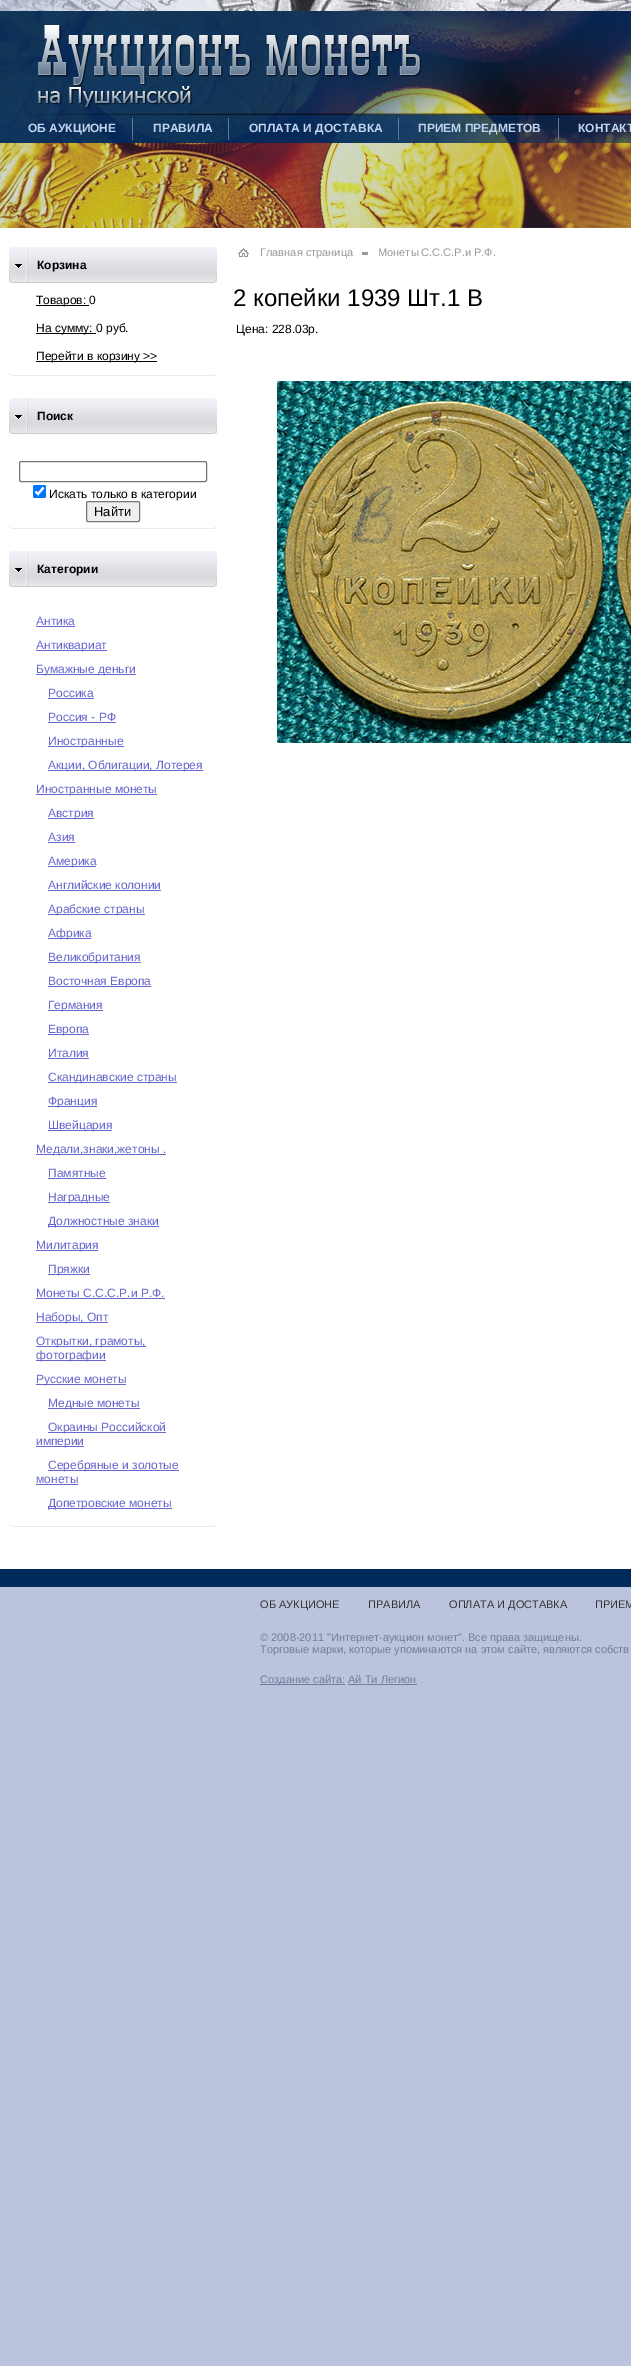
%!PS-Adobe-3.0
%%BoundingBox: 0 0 631 2366
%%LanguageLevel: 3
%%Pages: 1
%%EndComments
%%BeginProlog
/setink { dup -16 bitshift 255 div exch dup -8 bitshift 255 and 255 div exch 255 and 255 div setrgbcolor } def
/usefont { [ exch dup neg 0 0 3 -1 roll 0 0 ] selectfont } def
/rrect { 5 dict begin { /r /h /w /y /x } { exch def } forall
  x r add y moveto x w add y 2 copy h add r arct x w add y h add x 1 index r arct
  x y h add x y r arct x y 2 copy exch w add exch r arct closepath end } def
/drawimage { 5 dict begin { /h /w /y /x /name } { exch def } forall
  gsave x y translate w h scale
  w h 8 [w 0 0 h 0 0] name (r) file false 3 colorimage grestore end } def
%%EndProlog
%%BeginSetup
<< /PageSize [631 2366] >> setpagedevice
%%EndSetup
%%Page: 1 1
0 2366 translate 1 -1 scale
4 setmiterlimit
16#BBC4DC setink
0 0 631 2366 rectfill
(img1.raw) 0 0 631 11 drawimage
(img2.raw) 0 11 631 103 drawimage
(img3.raw) 38 25 384 84 drawimage
(img4.raw) 0 114 631 29 drawimage
/LiberationSans-Bold 12 usefont
16#C1D5EE setink
28 132 moveto (ОБ АУКЦИОНЕ) show
(img5.raw) 132 118 1 22 drawimage
153 132 moveto (ПРАВИЛА) show
(img5.raw) 228 118 1 22 drawimage
249 132 moveto (ОПЛАТА И ДОСТАВКА) show
(img5.raw) 398 118 1 22 drawimage
418 132 moveto (ПРИЕМ ПРЕДМЕТОВ) show
(img5.raw) 558 118 1 22 drawimage
578 132 moveto (КОНТАКТ) show
(img6.raw) 0 143 631 85 drawimage
16#FFFFFF setink
0 228 631 1341 rectfill
(img7.raw) 9 247 208 36 drawimage
16#010101 setink
37 269 moveto (Корзина) show
16#000000 setink
36 305 53 1 rectfill
/LiberationSans-Regular 12 usefont
16#010101 setink
36 304 moveto (Товаров: 0) show
16#000000 setink
36 333 60 1 rectfill
16#010101 setink
36 332 moveto (На сумму: 0 руб.) show
16#000000 setink
36 361 121 1 rectfill
16#010101 setink
36 360 moveto (Перейти в корзину >>) show
(img8.raw) 9 373 208 3 drawimage
(img7.raw) 9 398 208 36 drawimage
/LiberationSans-Bold 12 usefont
37 420 moveto (Поиск) show
16#767676 setink
19.5 461.5 187 20 1.5 rrect stroke
16#0075FF setink
33 485 13 13 2 rrect fill
16#FFFFFF setink
2.1 setlinewidth
35.5 491.5 moveto 38 494 lineto 43.5 487.5 lineto stroke
/LiberationSans-Regular 12 usefont
16#010101 setink
49 498 moveto (Искать только в категории) show
16#EFEFEF setink
86.5 501.5 53 20 1.5 rrect gsave fill grestore
16#767676 setink
1 setlinewidth
stroke
/LiberationSans-Regular 13 usefont
16#010101 setink
94 516 moveto (Найти) show
(img8.raw) 9 526 208 3 drawimage
(img7.raw) 9 551 208 36 drawimage
/LiberationSans-Bold 12 usefont
37 573 moveto (Категории) show
/LiberationSans-Regular 12 usefont
16#6666CC setink
36 625 moveto (Антика) show
36 626 39 1 rectfill
36 650 71 1 rectfill
36 649 moveto (Антиквариат) show
36 674 100 1 rectfill
36 673 moveto (Бумажные деньги) show
48 697 moveto (Россика) show
48 698 46 1 rectfill
48 721 moveto (Россия - РФ) show
48 722 68 1 rectfill
48 746 76 1 rectfill
48 745 moveto (Иностранные) show
48 770 155 1 rectfill
48 769 moveto (Акции, Облигации, Лотерея) show
36 794 121 1 rectfill
36 793 moveto (Иностранные монеты) show
48 818 46 1 rectfill
48 817 moveto (Австрия) show
48 841 moveto (Азия) show
48 842 27 1 rectfill
48 866 48 1 rectfill
48 865 moveto (Америка) show
48 889 moveto (Английские колонии) show
48 890 113 1 rectfill
48 914 97 1 rectfill
48 913 moveto (Арабские страны) show
48 938 43 1 rectfill
48 937 moveto (Африка) show
48 962 93 1 rectfill
48 961 moveto (Великобритания) show
48 986 103 1 rectfill
48 985 moveto (Восточная Европа) show
48 1010 55 1 rectfill
48 1009 moveto (Германия) show
48 1034 41 1 rectfill
48 1033 moveto (Европа) show
48 1057 moveto (Италия) show
48 1058 41 1 rectfill
48 1082 129 1 rectfill
48 1081 moveto (Скандинавские страны) show
48 1106 49 1 rectfill
48 1105 moveto (Франция) show
48 1130 64 1 rectfill
48 1129 moveto (Швейцария) show
36 1154 130 1 rectfill
36 1153 moveto (Медали,знаки,жетоны .) show
48 1177 moveto (Памятные) show
48 1178 58 1 rectfill
48 1202 62 1 rectfill
48 1201 moveto (Наградные) show
48 1226 111 1 rectfill
48 1225 moveto (Должностные знаки) show
36 1250 62 1 rectfill
36 1249 moveto (Милитария) show
48 1274 42 1 rectfill
48 1273 moveto (Пряжки) show
36 1297 moveto (Монеты С.С.С.Р.и Р.Ф.) show
36 1298 129 1 rectfill
36 1322 72 1 rectfill
36 1321 moveto (Наборы, Опт) show
36 1346 110 1 rectfill
36 1345 moveto (Открытки, грамоты,) show
36 1360 70 1 rectfill
36 1359 moveto (фотографии) show
36 1384 90 1 rectfill
36 1383 moveto (Русские монеты) show
48 1408 92 1 rectfill
48 1407 moveto (Медные монеты) show
48 1432 118 1 rectfill
48 1431 moveto (Окраины Российской) show
36 1446 48 1 rectfill
36 1445 moveto (империи) show
48 1470 131 1 rectfill
48 1469 moveto (Серебряные и золотые) show
36 1483 moveto (монеты) show
36 1484 42 1 rectfill
48 1508 124 1 rectfill
48 1507 moveto (Допетровские монеты) show
(img8.raw) 9 1524 208 3 drawimage
(img9.raw) 238 248 11 9 drawimage
/LiberationSans-Regular 11 usefont
16#999999 setink
260 256 moveto (Главная страница) show
362 252 6 3 rectfill
378 256 moveto (Монеты С.С.С.Р.и Р.Ф.) show
/LiberationSans-Regular 24 usefont
16#010101 setink
233 306 moveto (2 копейки 1939 Шт.1 В) show
/LiberationSans-Regular 12 usefont
236 333 moveto (Цена: 228.03р.) show
(img10.raw) 277 381 354 362 drawimage
16#002A5C setink
0 1569 631 18 rectfill
/LiberationSans-Regular 11 usefont
16#333333 setink
[
    [(ОБ АУКЦИОНЕ) 260 1608]
    [(ПРАВИЛА) 368 1608]
    [(ОПЛАТА И ДОСТАВКА) 449 1608]
    [(ПРИЕМ) 595 1608]
] { aload pop moveto show } forall
16#737E9B setink
260 1641 moveto (© 2008-2011 "Интернет-аукцион монет". Все права защищены.) show
260 1653 moveto (Торговые марки, которые упоминаются на этом сайте, являются собств) show
260 1684 85 1 rectfill
260 1683 moveto (Создание сайта: Ай Ти Легион) show
348 1684 69 1 rectfill
showpage
%%EOF
